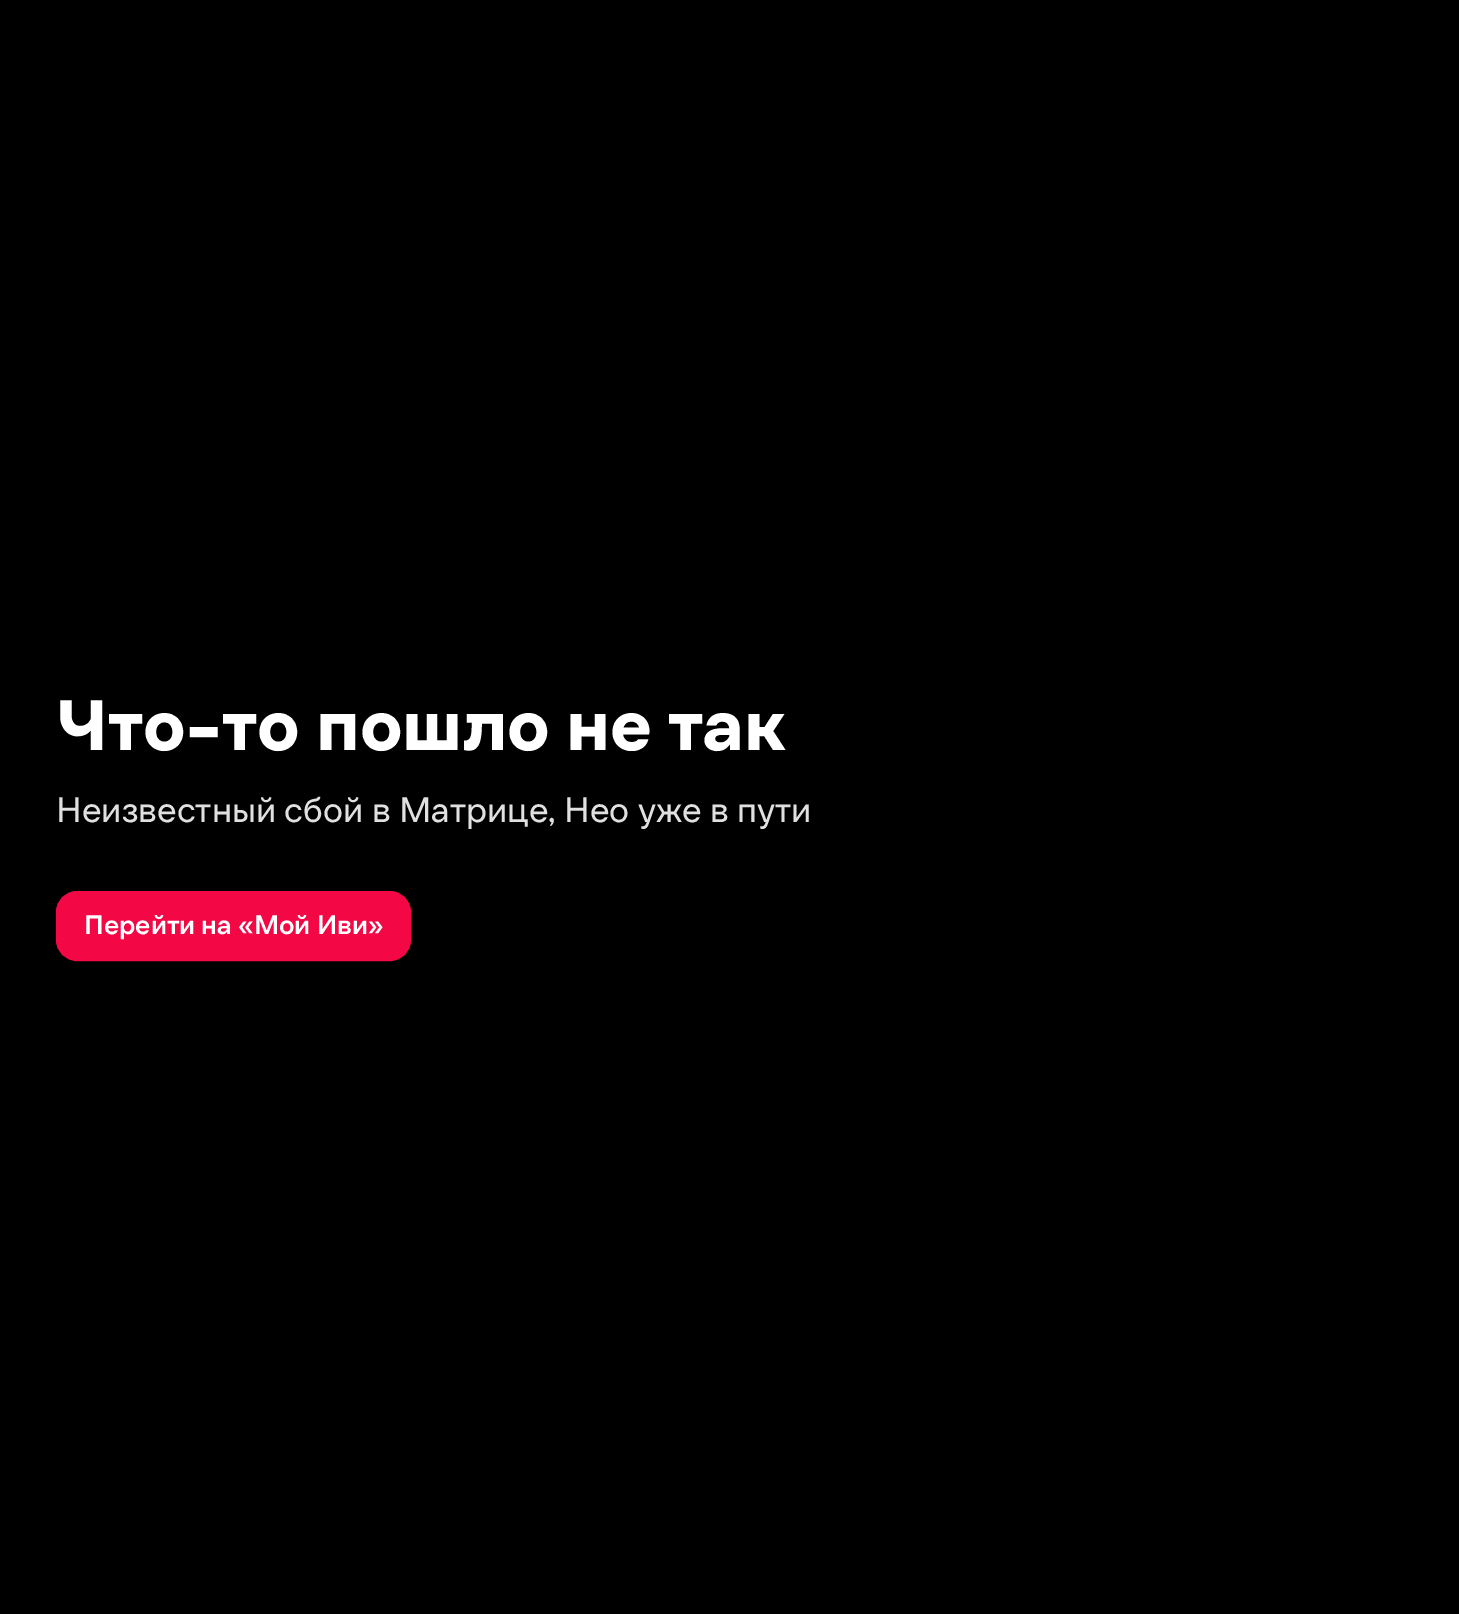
%!PS-Adobe-3.0
%%BoundingBox: 0 0 1459 1614
%%LanguageLevel: 3
%%Pages: 1
%%EndComments
%%BeginProlog
/setink { dup -16 bitshift 255 div exch dup -8 bitshift 255 and 255 div exch 255 and 255 div setrgbcolor } def
/usefont { [ exch dup neg 0 0 3 -1 roll 0 0 ] selectfont } def
/rrect { 5 dict begin { /r /h /w /y /x } { exch def } forall
  x r add y moveto x w add y 2 copy h add r arct x w add y h add x 1 index r arct
  x y h add x y r arct x y 2 copy exch w add exch r arct closepath end } def
%%EndProlog
%%BeginSetup
<< /PageSize [1459 1614] >> setpagedevice
%%EndSetup
%%Page: 1 1
0 1614 translate 1 -1 scale
4 setmiterlimit
16#000000 setink
0 0 1459 1614 rectfill
/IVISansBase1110-Bold 70 usefont
16#FFFFFF setink
56 750 moveto (Что-то пошло не так) show
/IVISansBase1110-Regular 35 usefont
16#E0E0E0 setink
56 822 moveto (Неизвестный сбой в Матрице, Нео уже в пути) show
16#F30745 setink
57 892 353 68 20 rrect gsave fill grestore
2 setlinewidth
stroke
/IVISansBase1110-Medium 26.25 usefont
16#FFFFFF setink
84 934 moveto (Перейти на «Мой Иви») show
showpage
%%EOF
